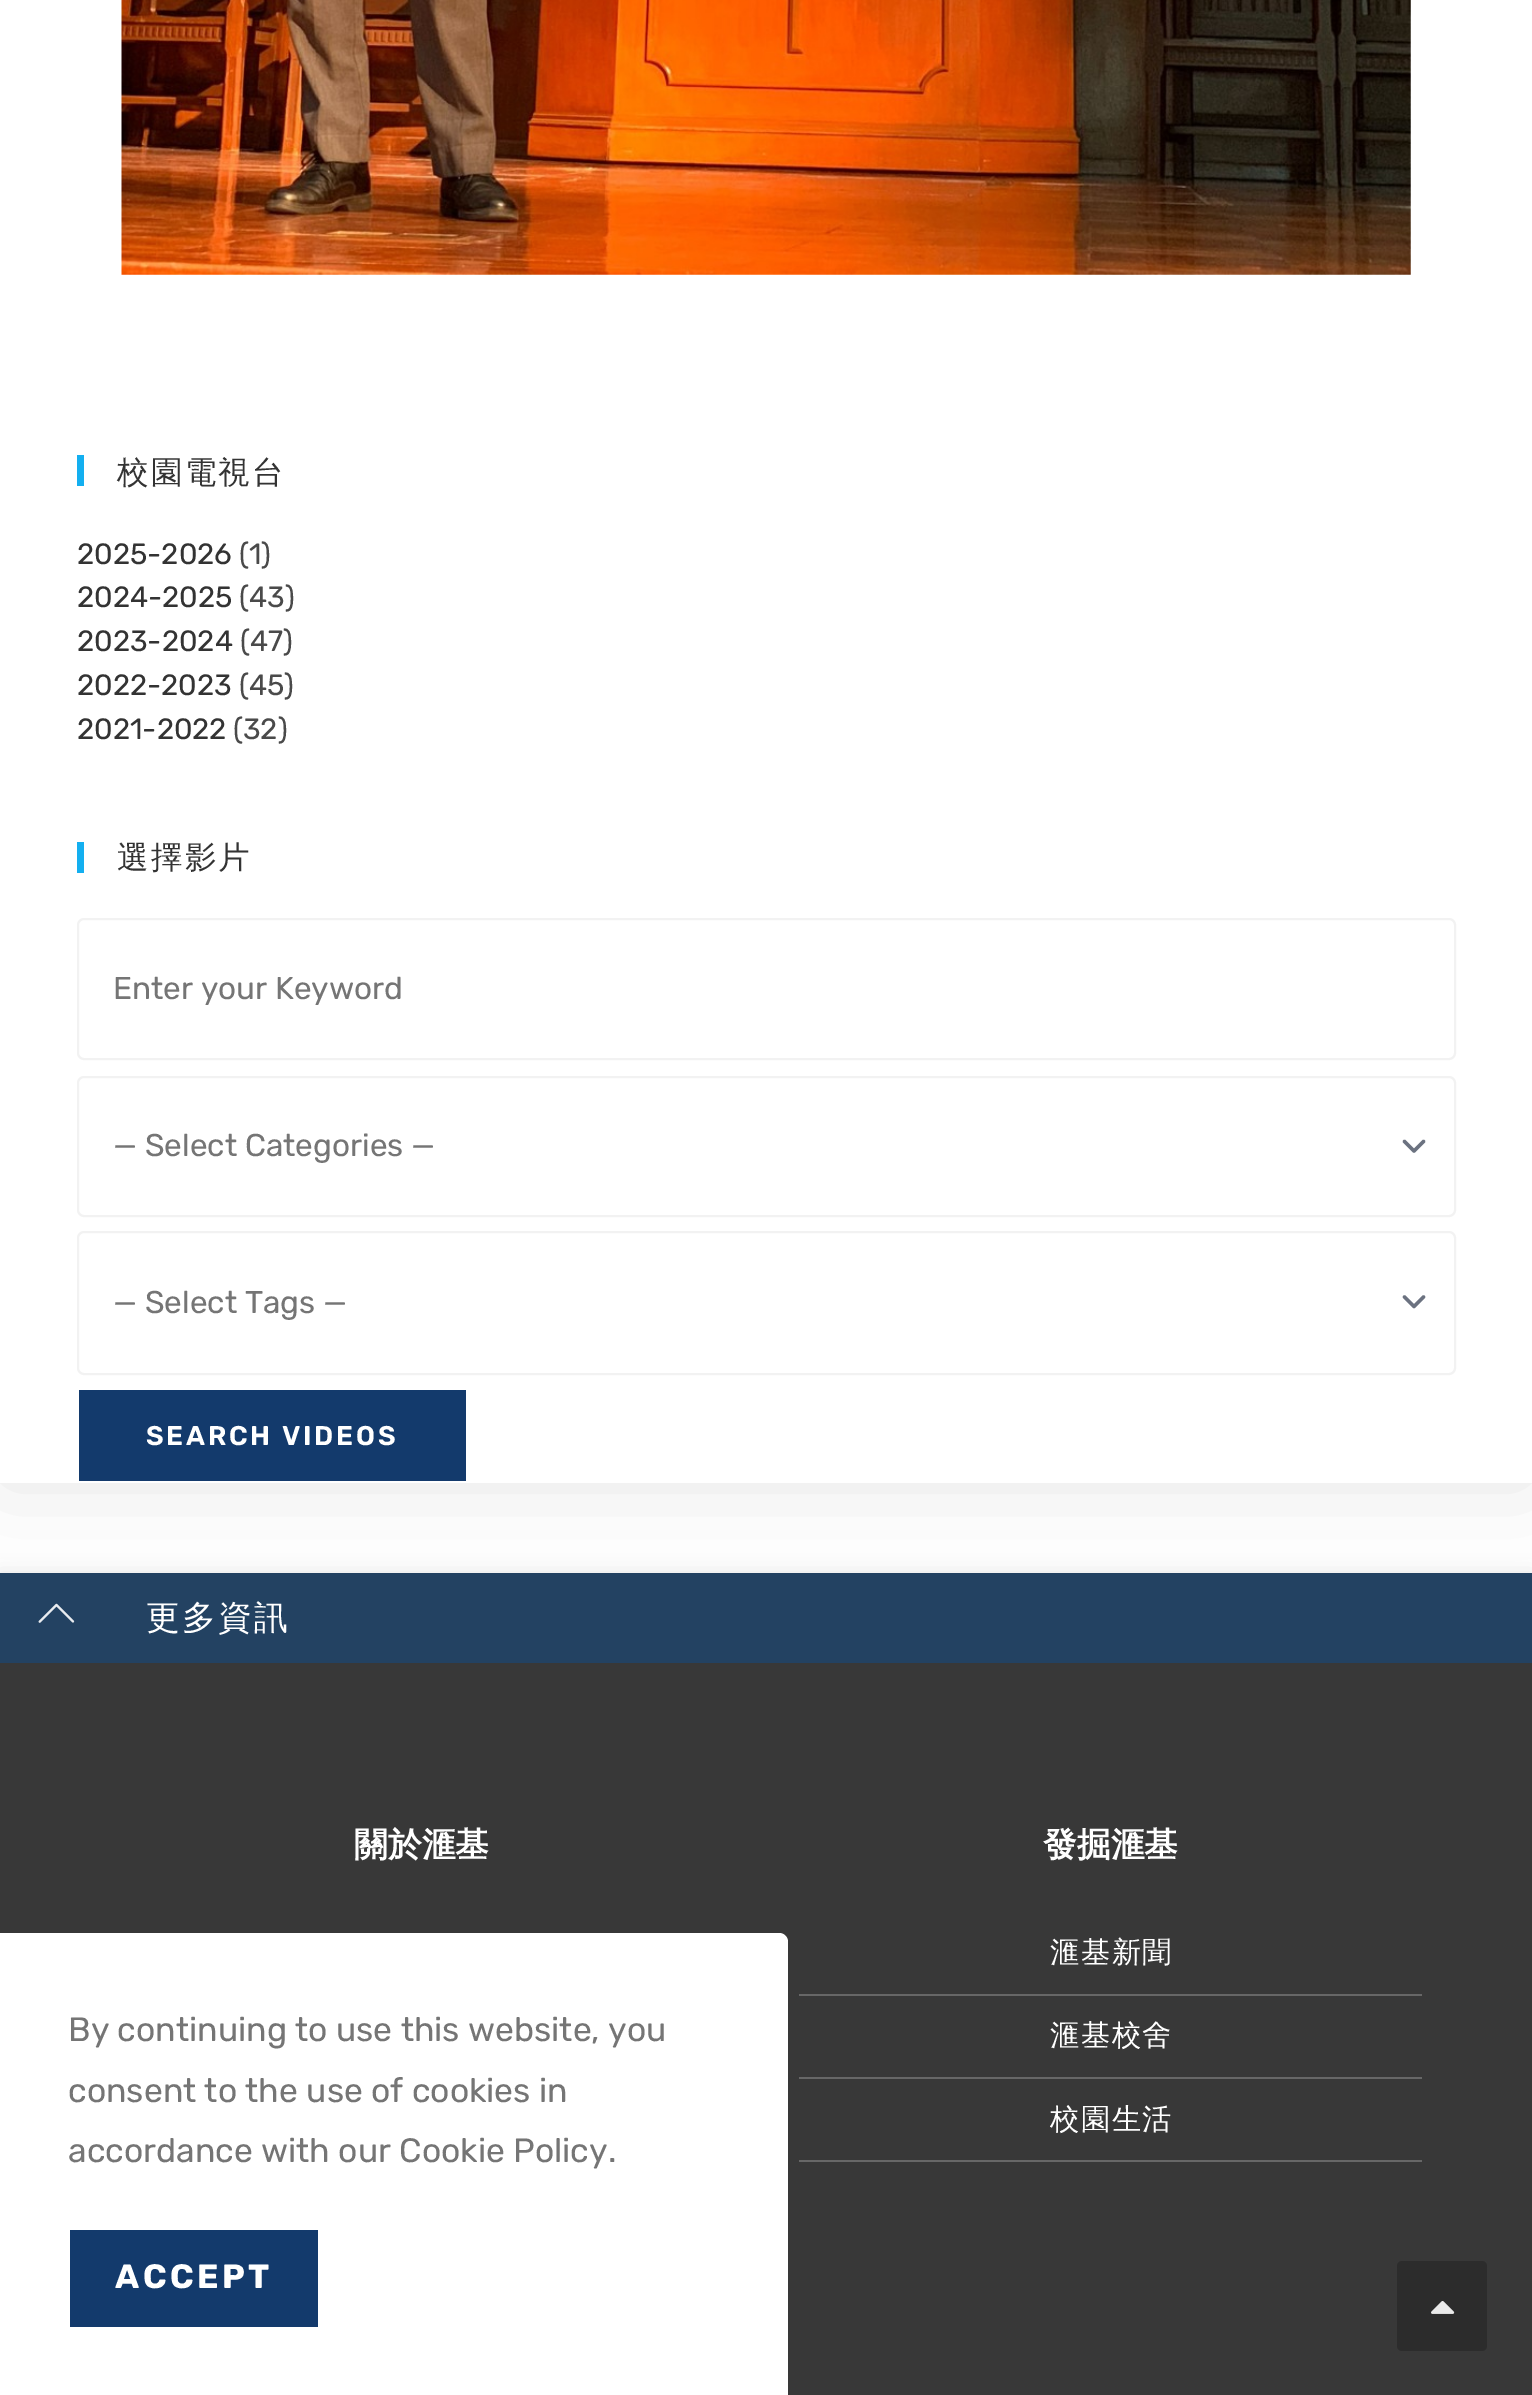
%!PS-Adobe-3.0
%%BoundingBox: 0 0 1532 2395
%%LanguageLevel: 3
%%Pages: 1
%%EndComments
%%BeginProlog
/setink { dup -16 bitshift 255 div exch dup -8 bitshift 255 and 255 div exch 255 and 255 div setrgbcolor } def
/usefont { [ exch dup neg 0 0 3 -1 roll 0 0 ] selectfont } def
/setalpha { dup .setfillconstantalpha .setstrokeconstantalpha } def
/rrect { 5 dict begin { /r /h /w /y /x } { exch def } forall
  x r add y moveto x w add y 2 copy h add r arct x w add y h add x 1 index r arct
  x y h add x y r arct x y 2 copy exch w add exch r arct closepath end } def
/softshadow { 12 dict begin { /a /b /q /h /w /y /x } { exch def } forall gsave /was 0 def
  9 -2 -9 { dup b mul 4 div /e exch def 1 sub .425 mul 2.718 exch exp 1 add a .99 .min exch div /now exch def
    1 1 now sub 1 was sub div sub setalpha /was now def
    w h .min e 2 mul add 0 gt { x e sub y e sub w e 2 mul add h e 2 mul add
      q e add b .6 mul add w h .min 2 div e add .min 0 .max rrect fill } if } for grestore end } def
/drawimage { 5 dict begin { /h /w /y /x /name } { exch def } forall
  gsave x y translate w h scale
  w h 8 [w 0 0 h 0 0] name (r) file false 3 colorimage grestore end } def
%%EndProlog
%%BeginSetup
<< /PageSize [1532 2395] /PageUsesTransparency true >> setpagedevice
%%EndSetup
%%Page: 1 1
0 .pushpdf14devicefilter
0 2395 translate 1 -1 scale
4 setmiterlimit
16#FFFFFF setink
0 0 1532 2395 rectfill
16#000000 setink
0 -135 1532 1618 0 45 0.1 softshadow
16#FFFFFF setink
0 0 1532 1483 rectfill
(img1.raw) 121 0 1290 275 drawimage
16#13AFF0 setink
77 455 7 31 rectfill
/WenQuanYiZenHei-Medium 31.5 usefont
16#333333 setink
117 483 moveto 2.25 0 (校園電視台) ashow
/Rubik-Light 29.25 usefont
77 564 moveto (2025-2026) show
16#4A4A4A setink
239 564 moveto (\(1\)) show
16#333333 setink
77 607 moveto (2024-2025) show
16#4A4A4A setink
239 607 moveto (\(43\)) show
16#333333 setink
77 651 moveto (2023-2024) show
16#4A4A4A setink
240 651 moveto (\(47\)) show
16#333333 setink
77 695 moveto (2022-2023) show
16#4A4A4A setink
239 695 moveto (\(45\)) show
16#333333 setink
77 739 moveto (2021-2022) show
16#4A4A4A setink
233 739 moveto (\(32\)) show
16#13AFF0 setink
77 842 7 31 rectfill
/WenQuanYiZenHei-Medium 31.5 usefont
16#333333 setink
117 868 moveto 2.25 0 (選擇影片) ashow
16#F2F2F2 setink
2 setlinewidth
78 919 1377 140 6 rrect stroke
/Rubik-Light 31.5 usefont
16#757575 setink
113 999 moveto (Enter your Keyword) show
16#6B7280 setink
3.5 setlinewidth
1 setlinecap
1 setlinejoin
1404.5 1141.5 moveto 1414 1151 lineto 1423.5 1141.5 lineto stroke
16#F2F2F2 setink
2 setlinewidth
0 setlinecap
0 setlinejoin
78 1077 1377 139 6 rrect stroke
16#757575 setink
113 1156 moveto (— Select Categories —) show
16#6B7280 setink
3.5 setlinewidth
1 setlinecap
1 setlinejoin
1404.5 1297 moveto 1414 1306.5 lineto 1423.5 1297 lineto stroke
16#F2F2F2 setink
2 setlinewidth
0 setlinecap
0 setlinejoin
78 1232 1377 142 6 rrect stroke
16#757575 setink
113 1313 moveto (— Select Tags —) show
16#133A6C setink
79 1390 387 91 rectfill
/Rubik-SemiBold 27 usefont
16#FFFFFF setink
146 1445 moveto 2.75 0 (SEARCH VIDEOS) ashow
16#191919 setink
0 1573 1532 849 0 9 0.1 softshadow
16#234262 setink
0 1573 1532 90 rectfill
(img2.raw) 38 1603 37 20 drawimage
/WenQuanYiZenHei-Medium 33.75 usefont
16#FFFFFF setink
146 1629 moveto 2.25 0 (更多資訊) ashow
16#383838 setink
0 1663 1532 732 rectfill
16#2C2C2C setink
1397 2261 90 90 5 rrect fill
(img3.raw) 1431 2301 24 13 drawimage
/WenQuanYiZenHei-Bold 33.75 usefont
16#FFFFFF setink
354 1856 moveto (關於滙基) show
1043 1856 moveto (發掘滙基) show
16#676767 setink
799 1994 623 2 rectfill
/WenQuanYiZenHei-Medium 29.25 usefont
16#FFFFFF setink
1050 1962 moveto 1.5 0 (滙基新聞) ashow
16#676767 setink
799 2077 623 2 rectfill
16#FFFFFF setink
1050 2045 moveto 1.5 0 (滙基校舍) ashow
16#676767 setink
799 2160 623 2 rectfill
16#FFFFFF setink
1050 2129 moveto 1.5 0 (校園生活) ashow
0 1933 moveto 779 1933 lineto 784 1933 788 1937 788 1942 curveto 788 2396 lineto 0 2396 lineto closepath fill
/Rubik-Light 33.75 usefont
16#757575 setink
[
    [(By continuing to use this website, you) 68 2041]
    [(consent to the use of cookies in) 68 2102]
    [(accordance with our Cookie Policy.) 68 2162]
] { aload pop moveto show } forall
16#133A6C setink
70 2230 248 97 rectfill
/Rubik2-Light 33.75 usefont
16#FFFFFF setink
115 2288 moveto 3.5 0 (ACCEPT) ashow
.poppdf14devicefilter showpage
%%EOF
